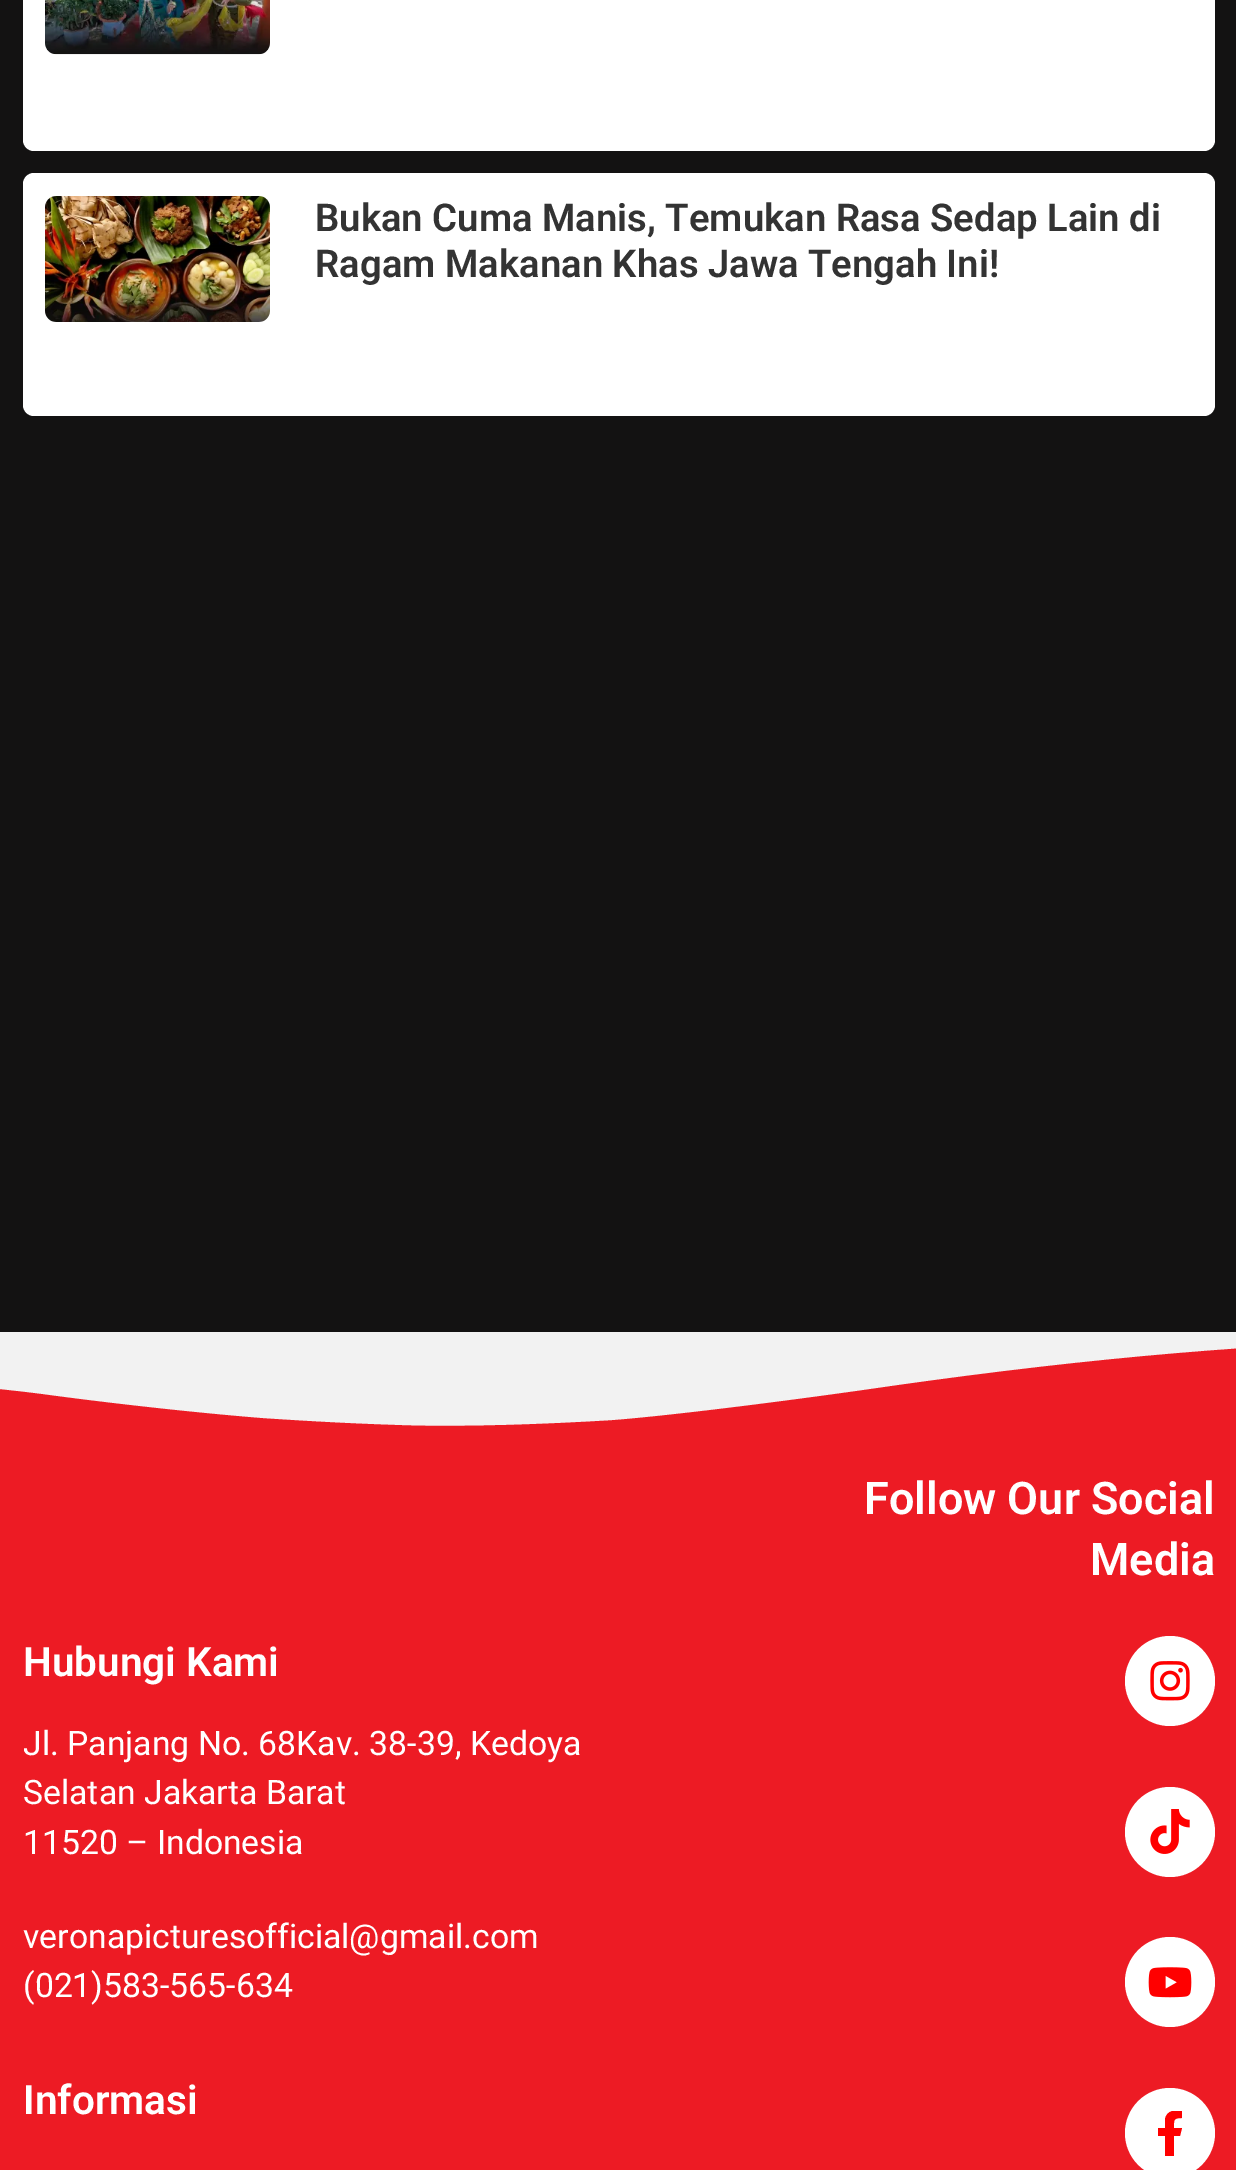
%!PS-Adobe-3.0
%%BoundingBox: 0 0 1236 2170
%%LanguageLevel: 3
%%Pages: 1
%%EndComments
%%BeginProlog
/setink { dup -16 bitshift 255 div exch dup -8 bitshift 255 and 255 div exch 255 and 255 div setrgbcolor } def
/usefont { [ exch dup neg 0 0 3 -1 roll 0 0 ] selectfont } def
/disc { newpath 0 360 arc closepath } def
/rrect { 5 dict begin { /r /h /w /y /x } { exch def } forall
  x r add y moveto x w add y 2 copy h add r arct x w add y h add x 1 index r arct
  x y h add x y r arct x y 2 copy exch w add exch r arct closepath end } def
/drawimage { 5 dict begin { /h /w /y /x /name } { exch def } forall
  gsave x y translate w h scale
  w h 8 [w 0 0 h 0 0] name (r) file false 3 colorimage grestore end } def
%%EndProlog
%%BeginSetup
<< /PageSize [1236 2170] >> setpagedevice
%%EndSetup
%%Page: 1 1
0 2170 translate 1 -1 scale
4 setmiterlimit
16#131212 setink
0 0 1236 2170 rectfill
16#FFFFFF setink
23 -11 1192 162 11 rrect fill
(img1.raw) 45 0 225 55 drawimage
23 173 1192 243 11 rrect fill
(img2.raw) 45 196 225 126 drawimage
/Roboto-SemiBold 38.25 usefont
16#333333 setink
315 231 moveto (Bukan Cuma Manis, Temukan Rasa Sedap Lain di) show
315 277 moveto (Ragam Makanan Khas Jawa Tengah Ini!) show
16#ED1B24 setink
0 1348 1236 822 rectfill
16#F2F2F2 setink
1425 1339 moveto 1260 1344 1101 1356 890 1386 curveto 808 1398 677 1415 612 1420 curveto 546 1424 466 1427 402 1425 curveto 374 1424 339 1423 263 1418 curveto 188 1412 102 1402 43 1394 curveto -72 1379 -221 1374 -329 1373 curveto -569 1372 -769 1402 -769 1402 curveto -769 1332 lineto 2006 1332 lineto 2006 1365 lineto 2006 1365 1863 1346 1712 1341 curveto 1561 1335 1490 1337 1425 1339 curveto closepath fill
/Roboto-SemiBold 45 usefont
16#FFFFFF setink
864 1514 moveto (Follow Our Social) show
1090 1575 moveto (Media) show
/Roboto-SemiBold 40.5 usefont
23 1676 moveto (Hubungi Kami) show
/Roboto-Regular 33.75 usefont
[
    [(Jl. Panjang No. 68Kav. 38-39, Kedoya) 23 1755]
    [(Selatan Jakarta Barat) 23 1804]
    [(11520 – Indonesia) 23 1854]
    [(veronapicturesofficial@gmail.com) 23 1948]
    [(\(021\)583-565-634) 23 1997]
] { aload pop moveto show } forall
/Roboto-SemiBold 40.5 usefont
23 2114 moveto (Informasi) show
1170 1681 45 disc fill
(img3.raw) 1150 1661 40 40 drawimage
1170 1832 45 disc fill
(img4.raw) 1150 1809 40 45 drawimage
1170 1982 45 disc fill
(img5.raw) 1148 1967 44 31 drawimage
1170 2133 45 disc fill
gsave
1148 2111 45 45 rectclip
16#FF0000 setink
1180 2136 moveto 1182 2128 lineto 1174 2128 lineto 1174 2120 1173 2118 1182 2118 curveto 1182 2111 lineto 1175 2110 1167 2110 1165 2119 curveto 1165 2128 lineto 1158 2128 lineto 1158 2136 lineto 1165 2136 lineto 1165 2156 lineto 1174 2156 lineto 1174 2136 lineto closepath fill
grestore
showpage
%%EOF
